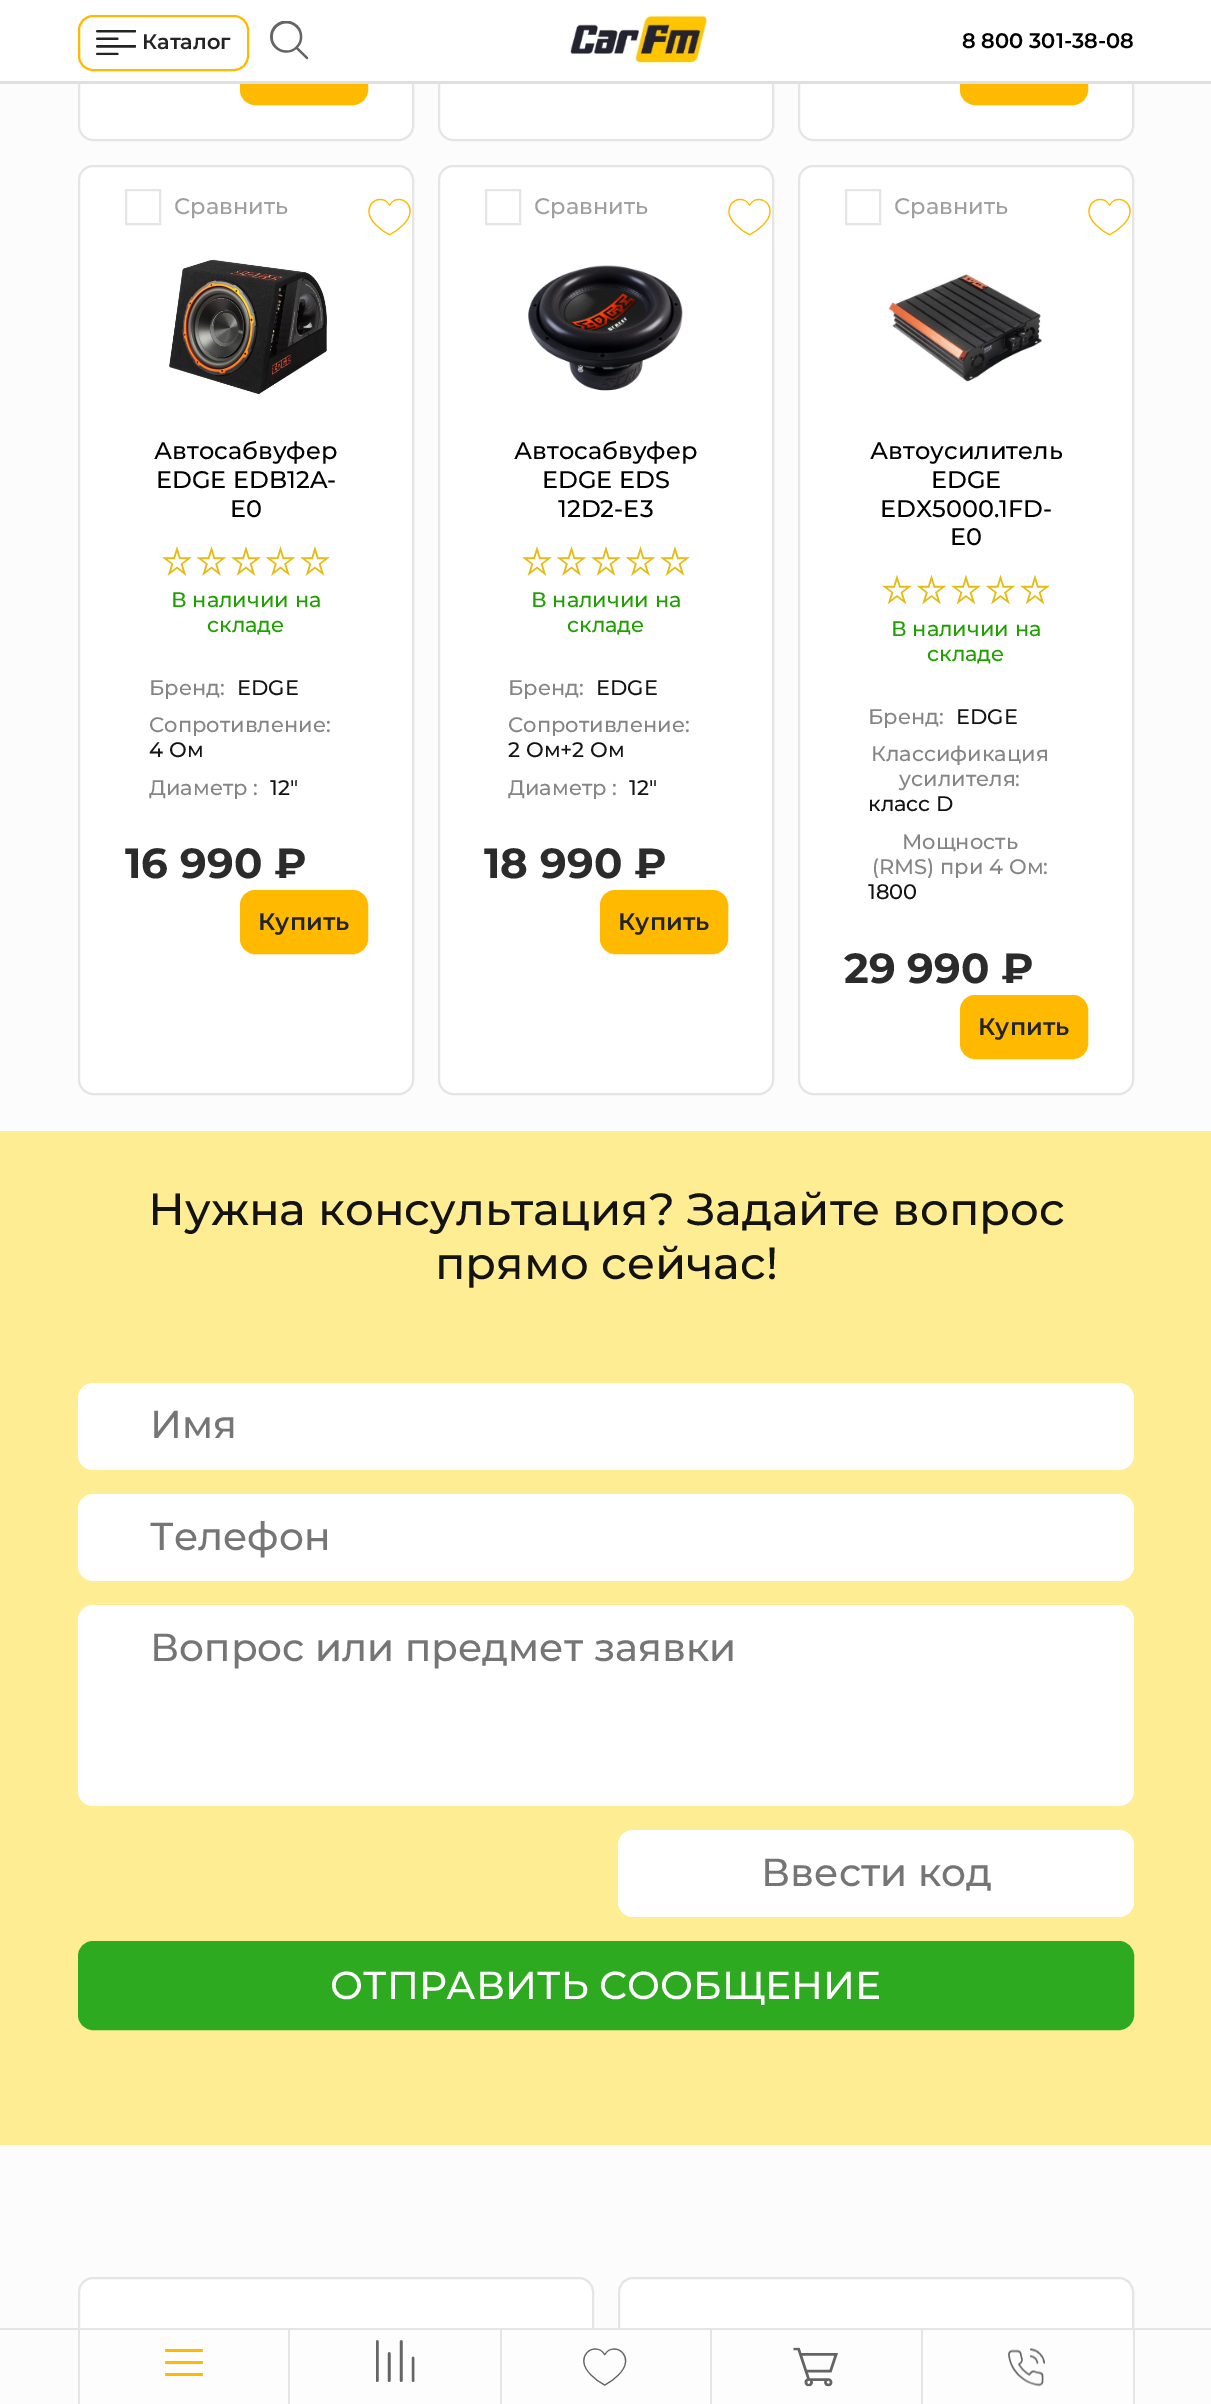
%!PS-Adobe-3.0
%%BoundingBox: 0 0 1211 2404
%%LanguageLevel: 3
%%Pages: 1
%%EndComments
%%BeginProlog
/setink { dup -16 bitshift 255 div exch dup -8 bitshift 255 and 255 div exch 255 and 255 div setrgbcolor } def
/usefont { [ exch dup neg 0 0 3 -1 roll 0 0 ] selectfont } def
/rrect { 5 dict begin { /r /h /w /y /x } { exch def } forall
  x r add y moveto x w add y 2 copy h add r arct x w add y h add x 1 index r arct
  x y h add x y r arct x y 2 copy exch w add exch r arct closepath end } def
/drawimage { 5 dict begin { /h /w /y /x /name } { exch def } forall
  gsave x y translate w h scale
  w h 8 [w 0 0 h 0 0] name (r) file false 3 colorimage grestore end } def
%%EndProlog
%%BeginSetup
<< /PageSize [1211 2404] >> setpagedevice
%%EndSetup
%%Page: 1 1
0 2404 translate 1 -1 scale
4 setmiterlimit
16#FCFCFC setink
0 0 1211 2404 rectfill
16#FFFFFF setink
79 -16 334 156 14 rrect gsave fill grestore
16#E5E5E5 setink
2 setlinewidth
stroke
16#FFBA00 setink
241 42 126 62 14 rrect gsave fill grestore
stroke
16#FFFFFF setink
439 -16 334 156 14 rrect gsave fill grestore
16#E5E5E5 setink
stroke
16#FFFFFF setink
799 -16 334 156 14 rrect gsave fill grestore
16#E5E5E5 setink
stroke
16#FFBA00 setink
961 42 126 62 14 rrect gsave fill grestore
stroke
16#FFFFFF setink
0 0 1211 81 rectfill
16#E0E0E0 setink
0 81 1211 3 rectfill
16#FFBA00 setink
79 16 169 54 14 rrect stroke
(img1.raw) 96 30 41 26 drawimage
/Montserrat-SemiBold 21 usefont
16#242424 setink
142 49 moveto (Каталог) show
(img2.raw) 270 21 39 39 drawimage
(img3.raw) 570 14 138 50 drawimage
16#000000 setink
962 48 moveto (8 800 301-38-08) show
16#FFFFFF setink
79 2278 514 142 14 rrect gsave fill grestore
16#E5E5E5 setink
stroke
16#FFFFFF setink
619 2278 514 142 14 rrect gsave fill grestore
16#E5E5E5 setink
stroke
[
    [78 2330 1056 74 16#FDFDFD]
    [0 2328 1211 2 16#E5E5E5]
    [1133 2330 2 74 16#E5E5E5]
    [78 2330 2 74 16#E5E5E5]
    [288 2330 2 74 16#E5E5E5]
] { aload pop setink rectfill } forall
16#FFBA00 setink
165 2361 38 3 1.5 rrect fill
165 2349 38 3 1.5 rrect fill
165 2373 38 3 1.5 rrect fill
16#E5E5E5 setink
500 2330 2 74 rectfill
(img4.raw) 376 2340 39 42 drawimage
710 2330 2 74 rectfill
(img5.raw) 583 2348 44 38 drawimage
921 2330 2 74 rectfill
(img6.raw) 793 2347 45 40 drawimage
(img7.raw) 1008 2348 37 39 drawimage
16#FFFFFF setink
79 166 334 928 14 rrect gsave fill grestore
16#E5E5E5 setink
stroke
126 190 34 34 rectstroke
/Montserrat-Medium 22.5 usefont
16#9F9F9F setink
174 214 moveto (Сравнить) show
(img8.raw) 368 198 43 38 drawimage
(img9.raw) 169 259 159 136 drawimage
/Montserrat-Medium 24 usefont
16#000000 setink
[
    [(Автосабвуфер) 154 459]
    [(EDGE EDB12A-) 156 488]
    [(E0) 230 517]
] { aload pop moveto show } forall
(img10.raw) 162 546 30 30 drawimage
(img11.raw) 196 546 31 30 drawimage
(img12.raw) 231 546 30 30 drawimage
(img11.raw) 265 546 31 30 drawimage
(img10.raw) 300 546 30 30 drawimage
/Montserrat-Medium 21 usefont
16#1F9F00 setink
171 607 moveto (В наличии на) show
207 632 moveto (складе) show
16#858585 setink
149 695 moveto (Бренд:) show
16#131313 setink
237 695 moveto (EDGE) show
16#858585 setink
149 732 moveto (Сопротивление:) show
16#131313 setink
149 757 moveto (4 Ом) show
16#858585 setink
149 795 moveto (Диаметр :) show
16#131313 setink
270 795 moveto (12") show
/Montserrat-Bold 42 usefont
16#2B2B2B setink
125 878 moveto (16 990 ₽) show
16#FFBA00 setink
241 891 126 62 14 rrect gsave fill grestore
stroke
/Montserrat-SemiBold 24 usefont
16#242424 setink
258 930 moveto (Купить) show
16#FFFFFF setink
439 166 334 928 14 rrect gsave fill grestore
16#E5E5E5 setink
stroke
486 190 34 34 rectstroke
/Montserrat-Medium 22.5 usefont
16#9F9F9F setink
534 214 moveto (Сравнить) show
(img13.raw) 728 198 43 38 drawimage
(img14.raw) 528 265 155 126 drawimage
/Montserrat-Medium 24 usefont
16#000000 setink
[
    [(Автосабвуфер) 514 459]
    [(EDGE EDS) 542 488]
    [(12D2-E3) 558 517]
] { aload pop moveto show } forall
(img10.raw) 522 546 30 30 drawimage
(img11.raw) 556 546 31 30 drawimage
(img10.raw) 591 546 30 30 drawimage
(img11.raw) 625 546 31 30 drawimage
(img10.raw) 660 546 30 30 drawimage
/Montserrat-Medium 21 usefont
16#1F9F00 setink
531 607 moveto (В наличии на) show
567 632 moveto (складе) show
16#858585 setink
508 695 moveto (Бренд:) show
16#131313 setink
596 695 moveto (EDGE) show
16#858585 setink
508 732 moveto (Сопротивление:) show
16#131313 setink
508 757 moveto (2 Ом+2 Ом) show
16#858585 setink
508 795 moveto (Диаметр :) show
16#131313 setink
629 795 moveto (12") show
/Montserrat-Bold 42 usefont
16#2B2B2B setink
484 878 moveto (18 990 ₽) show
16#FFBA00 setink
601 891 126 62 14 rrect gsave fill grestore
stroke
/Montserrat-SemiBold 24 usefont
16#242424 setink
618 930 moveto (Купить) show
16#FFFFFF setink
799 166 334 928 14 rrect gsave fill grestore
16#E5E5E5 setink
stroke
846 190 34 34 rectstroke
/Montserrat-Medium 22.5 usefont
16#9F9F9F setink
894 214 moveto (Сравнить) show
(img8.raw) 1088 198 43 38 drawimage
(img15.raw) 889 274 153 108 drawimage
/Montserrat-Medium 24 usefont
16#000000 setink
[
    [(Автоусилитель) 870 459]
    [(EDGE) 931 488]
    [(EDX5000.1FD-) 880 517]
    [(E0) 950 545]
] { aload pop moveto show } forall
(img16.raw) 882 575 30 30 drawimage
(img17.raw) 916 574 31 31 drawimage
(img16.raw) 951 575 30 30 drawimage
(img17.raw) 985 574 31 31 drawimage
(img16.raw) 1020 575 30 30 drawimage
/Montserrat-Medium 21 usefont
16#1F9F00 setink
891 636 moveto (В наличии на) show
927 661 moveto (складе) show
16#858585 setink
868 724 moveto (Бренд:) show
16#131313 setink
956 724 moveto (EDGE) show
16#858585 setink
871 761 moveto (Классификация) show
899 786 moveto (усилителя:) show
16#131313 setink
868 811 moveto (класс D) show
16#858585 setink
902 849 moveto (Мощность) show
872 874 moveto (\(RMS\) при 4 Ом:) show
16#131313 setink
868 899 moveto (1800) show
/Montserrat-Bold 42 usefont
16#2B2B2B setink
844 983 moveto (29 990 ₽) show
16#FFBA00 setink
961 996 126 62 14 rrect gsave fill grestore
stroke
/Montserrat-SemiBold 24 usefont
16#242424 setink
978 1035 moveto (Купить) show
16#FFED93 setink
0 1131 1211 1014 rectfill
/Montserrat-Medium 45 usefont
16#131313 setink
148 1225 moveto (Нужна консультация? Задайте вопрос) show
435 1279 moveto (прямо сейчас!) show
16#FFFFFF setink
78 1383 1056 87 15 rrect fill
/Montserrat-Medium 39 usefont
16#757575 setink
150 1438 moveto (Имя) show
16#FFFFFF setink
78 1494 1056 87 15 rrect fill
16#757575 setink
150 1550 moveto (Телефон) show
16#FFFFFF setink
78 1605 1056 201 15 rrect fill
16#757575 setink
150 1661 moveto (Вопрос или предмет заявки) show
16#FFFFFF setink
618 1830 516 87 15 rrect fill
16#757575 setink
761 1886 moveto (Ввести код) show
16#2EAA20 setink
79 1942 1054 87 14 rrect gsave fill grestore
stroke
16#FFFFFF setink
330 1999 moveto (ОТПРАВИТЬ СООБЩЕНИЕ) show
showpage
%%EOF
